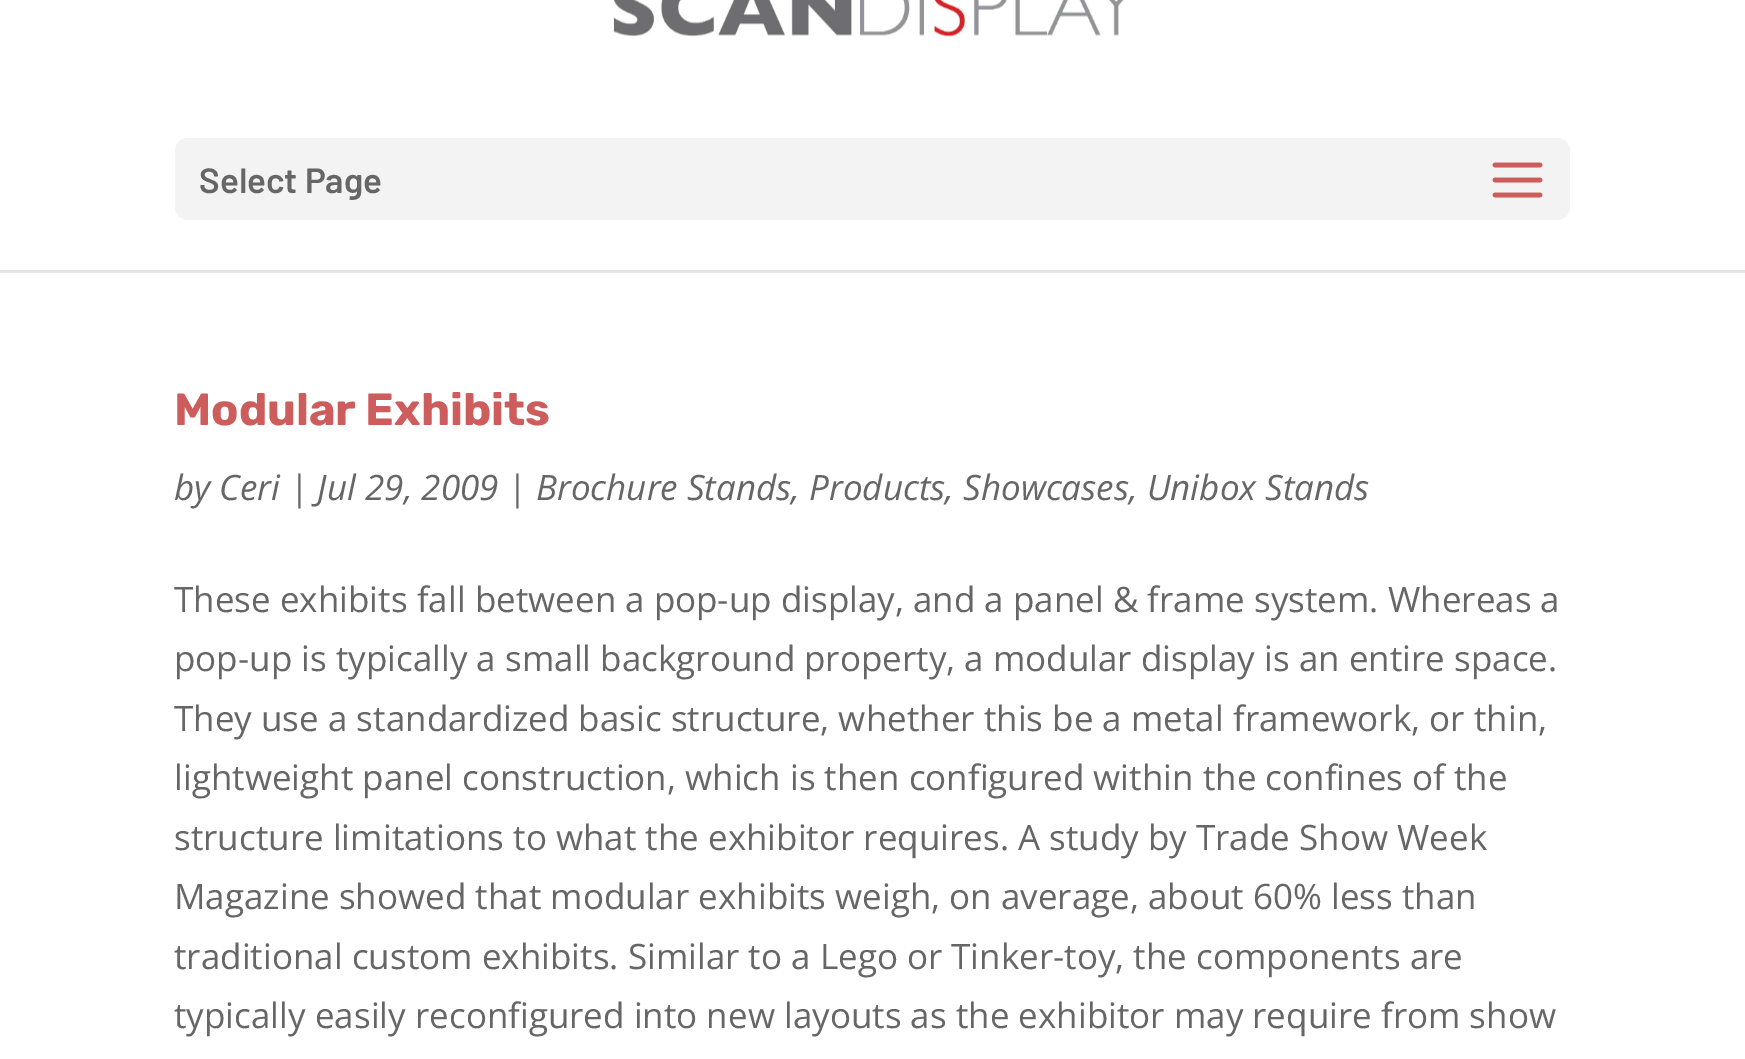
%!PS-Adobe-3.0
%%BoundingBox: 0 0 1745 1059
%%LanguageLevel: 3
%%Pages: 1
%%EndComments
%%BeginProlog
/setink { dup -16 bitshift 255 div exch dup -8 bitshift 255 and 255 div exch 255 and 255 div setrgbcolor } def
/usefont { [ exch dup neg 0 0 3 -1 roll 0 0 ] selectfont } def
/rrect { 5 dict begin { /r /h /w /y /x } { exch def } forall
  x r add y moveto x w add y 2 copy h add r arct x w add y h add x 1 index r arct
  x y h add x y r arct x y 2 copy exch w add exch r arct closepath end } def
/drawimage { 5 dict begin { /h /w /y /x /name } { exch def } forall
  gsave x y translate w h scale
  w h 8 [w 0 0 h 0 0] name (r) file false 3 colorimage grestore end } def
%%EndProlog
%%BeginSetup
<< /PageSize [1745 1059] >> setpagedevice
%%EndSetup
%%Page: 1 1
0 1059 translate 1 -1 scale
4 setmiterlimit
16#FFFFFF setink
0 0 1745 1059 rectfill
16#E6E6E6 setink
0 270 1745 3 rectfill
(img1.raw) 613 0 511 38 drawimage
16#F3F3F3 setink
175 138 1395 82 13 rrect fill
/Barlow-SemiBold 35 usefont
16#666666 setink
199 193 moveto (Select Page) show
(img2.raw) 1492 162 51 36 drawimage
/Rubik-Light 45 usefont
16#CD5C5C setink
174 425 moveto (Modular Exhibits) show
/OpenSans-Italic 35 usefont
16#666666 setink
174 500 moveto (by Ceri | Jul 29, 2009 | Brochure Stands, Products, Showcases, Unibox Stands) show
/OpenSans-Regular 35 usefont
[
    [(These exhibits fall between a pop-up display, and a panel & frame system. Whereas a) 174 612]
    [(pop-up is typically a small background property, a modular display is an entire space.) 174 671]
    [(They use a standardized basic structure, whether this be a metal framework, or thin,) 174 731]
    [(lightweight panel construction, which is then configured within the confines of the) 174 790]
    [(structure limitations to what the exhibitor requires. A study by Trade Show Week) 174 850]
    [(Magazine showed that modular exhibits weigh, on average, about 60% less than) 174 909]
    [(traditional custom exhibits. Similar to a Lego or Tinker-toy, the components are) 174 969]
    [(typically easily reconfigured into new layouts as the exhibitor may require from show) 174 1028]
] { aload pop moveto show } forall
showpage
%%EOF
